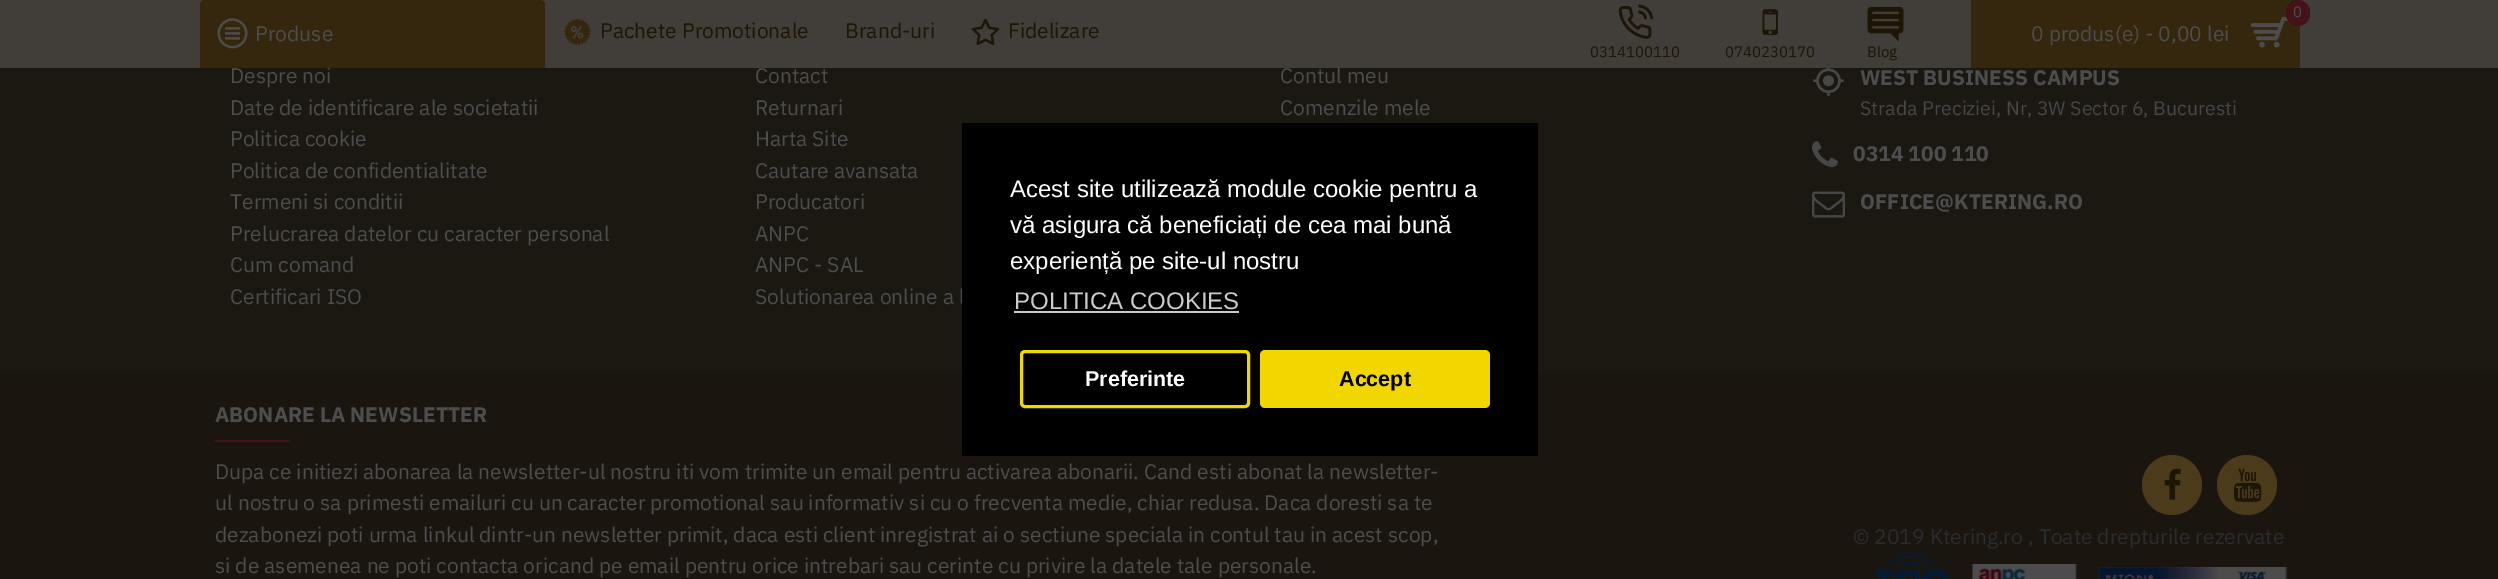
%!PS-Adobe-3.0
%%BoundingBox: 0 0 2498 579
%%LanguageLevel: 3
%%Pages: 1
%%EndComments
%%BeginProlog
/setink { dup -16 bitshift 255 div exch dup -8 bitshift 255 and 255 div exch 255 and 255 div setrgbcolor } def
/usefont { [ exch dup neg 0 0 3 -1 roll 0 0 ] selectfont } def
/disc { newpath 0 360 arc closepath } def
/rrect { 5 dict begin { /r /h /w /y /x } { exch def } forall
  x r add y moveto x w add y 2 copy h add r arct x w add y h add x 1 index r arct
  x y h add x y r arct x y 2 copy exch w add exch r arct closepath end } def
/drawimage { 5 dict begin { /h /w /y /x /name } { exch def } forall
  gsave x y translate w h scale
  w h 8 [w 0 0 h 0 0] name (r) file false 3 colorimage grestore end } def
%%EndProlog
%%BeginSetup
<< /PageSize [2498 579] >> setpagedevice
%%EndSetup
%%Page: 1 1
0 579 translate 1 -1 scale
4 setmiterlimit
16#1B1812 setink
0 0 2498 579 rectfill
/IBMPlexSans-Regular 21 usefont
16#4D4D4D setink
230 83 moveto (Despre noi) show
1280 83 moveto (Contul meu) show
16#413E39 setink
0 0 2498 68 rectfill
16#34270E setink
205 0 moveto 540 0 lineto 543 0 545 2 545 5 curveto 545 68 lineto 200 68 lineto 200 5 lineto 200 2 202 0 205 0 curveto closepath fill
(img1.raw) 217 18 31 31 drawimage
16#4D4D4D setink
255 41 moveto (Produse) show
(img2.raw) 564 18 27 28 drawimage
16#1D1505 setink
600 38 moveto (Pachete Promotionale) show
845 38 moveto (Brand-uri) show
(img3.raw) 971 18 29 28 drawimage
1008 38 moveto (Fidelizare) show
16#34270E setink
1971 0 329 68 rectfill
(img4.raw) 2250 16 39 32 drawimage
16#451218 setink
2286 0 24 26 12 rrect fill
/IBMPlexSans-Regular 15 usefont
16#4D4D4D setink
2293 17 moveto (0) show
/IBMPlexSans-Regular 21 usefont
2031 41 moveto (0 produs\(e\) - 0,00 lei) show
(img5.raw) 1618 4 36 35 drawimage
/IBMPlexSans-Regular 15 usefont
16#1D1505 setink
1590 57 moveto (0314100110) show
(img6.raw) 1762 9 16 26 drawimage
1725 57 moveto (0740230170) show
(img7.raw) 1867 6 37 36 drawimage
1867 57 moveto (Blog) show
/IBMPlexSans-Regular 21 usefont
16#4D4D4D setink
[
    [(Date de identificare ale societatii) 230 115]
    [(Politica cookie) 230 146]
    [(Politica de confidentialitate) 230 178]
    [(Termeni si conditii) 230 209]
    [(Prelucrarea datelor cu caracter personal) 230 241]
    [(Cum comand) 230 272]
    [(Certificari ISO) 230 304]
    [(Contact) 755 83]
    [(Returnari) 755 115]
    [(Harta Site) 755 146]
    [(Cautare avansata) 755 178]
    [(Producatori) 755 209]
    [(ANPC) 755 241]
    [(ANPC - SAL) 755 272]
    [(Solutionarea online a l) 755 304]
    [(Comenzile mele) 1280 115]
] { aload pop moveto show } forall
(img8.raw) 1813 68 31 28 drawimage
/IBMPlexSans-Bold 21 usefont
1860 85 moveto (WEST BUSINESS CAMPUS) show
/IBMPlexSans-Regular 19.5 usefont
16#474747 setink
1860 115 moveto (Strada Preciziei, Nr, 3W Sector 6, Bucuresti) show
(img9.raw) 1812 141 26 27 drawimage
/IBMPlexSans-Bold 21 usefont
16#4D4D4D setink
1853 161 moveto (0314 100 110) show
(img10.raw) 1812 191 33 27 drawimage
1860 209 moveto (OFFICE@KTERING.RO) show
16#1A160F setink
0 372 2498 207 rectfill
16#4D4D4D setink
215 422 moveto (ABONARE LA NEWSLETTER) show
16#451218 setink
215 440 75 2 rectfill
/IBMPlexSans-Regular 21 usefont
16#4D4D4D setink
[
    [(Dupa ce initiezi abonarea la newsletter-ul nostru iti vom trimite un email pentru activarea abonarii. Cand esti abonat la newsletter-) 215 479]
    [(ul nostru o sa primesti emailuri cu un caracter promotional sau informativ si cu o frecventa medie, chiar redusa. Daca doresti sa te) 215 510]
    [(dezabonezi poti urma linkul dintr-un newsletter primit, daca esti client inregistrat ai o sectiune speciala in contul tau in acest scop,) 215 542]
    [(si de asemenea ne poti contacta oricand pe email pentru orice intrebari sau cerinte cu privire la datele tale personale.) 215 573]
] { aload pop moveto show } forall
16#4B3B1B setink
2172 485 30 disc fill
(img11.raw) 2164 468 17 32 drawimage
2247 485 30 disc fill
(img12.raw) 2234 468 28 34 drawimage
16#2A2C2E setink
1853 544 moveto (© 2019 Ktering.ro , Toate drepturile rezervate) show
(img13.raw) 1874 552 77 27 drawimage
(img14.raw) 1972 564 105 15 drawimage
(img15.raw) 2098 567 189 12 drawimage
16#000000 setink
962 123 576 333 rectfill
/LiberationSans-Regular 24 usefont
16#FFFFFF setink
[
    [(Acest site utilizează module cookie pentru a) 1010 197]
    [(vă asigura că beneficiați de cea mai bună) 1010 233]
    [(experiență pe site-ul nostru) 1010 269]
] { aload pop moveto show } forall
16#CCCCCC setink
1014 309 moveto (POLITICA COOKIES) show
1014 311 225 2 rectfill
16#F1D600 setink
3 setlinewidth
1021.5 351.5 227 55 3.5 rrect stroke
/LiberationSans-Bold 21.5 usefont
16#FFFFFF setink
1085 386 moveto (Preferinte) show
16#F1D600 setink
1260 350 230 58 5 rrect fill
16#000000 setink
1339 386 moveto (Accept) show
showpage
%%EOF
